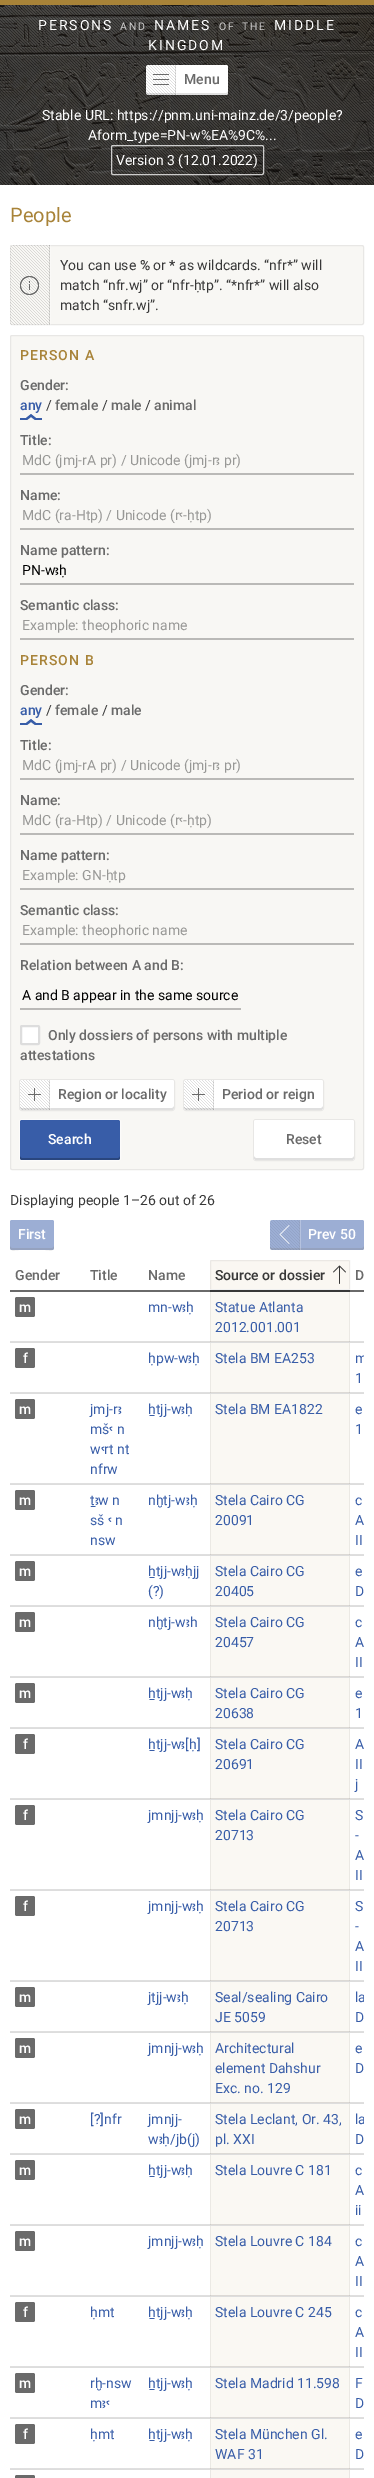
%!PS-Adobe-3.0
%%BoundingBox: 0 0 374 2478
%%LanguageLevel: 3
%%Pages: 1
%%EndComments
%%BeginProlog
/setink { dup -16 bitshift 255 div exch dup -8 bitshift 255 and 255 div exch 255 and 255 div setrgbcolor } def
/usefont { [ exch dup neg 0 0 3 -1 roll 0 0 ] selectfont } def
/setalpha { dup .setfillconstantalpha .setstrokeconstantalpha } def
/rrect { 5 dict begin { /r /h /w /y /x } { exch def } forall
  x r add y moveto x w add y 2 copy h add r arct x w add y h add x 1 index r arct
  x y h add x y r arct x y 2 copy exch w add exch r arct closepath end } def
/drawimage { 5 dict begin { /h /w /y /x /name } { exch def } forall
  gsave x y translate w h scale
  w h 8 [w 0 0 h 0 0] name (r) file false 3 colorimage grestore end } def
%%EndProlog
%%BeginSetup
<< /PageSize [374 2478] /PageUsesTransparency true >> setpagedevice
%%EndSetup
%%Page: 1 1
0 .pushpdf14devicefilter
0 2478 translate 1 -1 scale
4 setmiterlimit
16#FFFFFF setink
0 0 374 2478 rectfill
[
    [211 2419 138 49 16#FAF8F3]
    [210 2419 1 50 16#EBE9E4]
    [349 2419 1 50 16#EBE9E4]
    [211 2368 138 49 16#FAF8F3]
    [210 2368 1 50 16#EBE9E4]
    [349 2368 1 50 16#EBE9E4]
    [211 2297 138 69 16#FAF8F3]
    [210 2297 1 70 16#EBE9E4]
    [349 2297 1 70 16#EBE9E4]
    [211 2226 138 69 16#FAF8F3]
    [210 2226 1 70 16#EBE9E4]
    [349 2226 1 70 16#EBE9E4]
    [211 2155 138 69 16#FAF8F3]
    [210 2155 1 70 16#EBE9E4]
    [349 2155 1 70 16#EBE9E4]
    [211 2104 138 49 16#FAF8F3]
    [210 2104 1 50 16#EBE9E4]
    [349 2104 1 50 16#EBE9E4]
    [211 2033 138 69 16#FAF8F3]
    [210 2033 1 70 16#EBE9E4]
    [349 2033 1 70 16#EBE9E4]
    [211 1982 138 49 16#FAF8F3]
    [210 1982 1 50 16#EBE9E4]
    [349 1982 1 50 16#EBE9E4]
    [211 1891 138 89 16#FAF8F3]
    [210 1891 1 90 16#EBE9E4]
    [349 1891 1 90 16#EBE9E4]
    [211 1800 138 89 16#FAF8F3]
    [210 1800 1 90 16#EBE9E4]
    [349 1800 1 90 16#EBE9E4]
    [211 1729 138 69 16#FAF8F3]
    [210 1729 1 70 16#EBE9E4]
    [349 1729 1 70 16#EBE9E4]
    [211 1678 138 49 16#FAF8F3]
    [210 1678 1 50 16#EBE9E4]
    [349 1678 1 50 16#EBE9E4]
    [211 1607 138 69 16#FAF8F3]
    [210 1607 1 70 16#EBE9E4]
    [349 1607 1 70 16#EBE9E4]
    [211 1556 138 49 16#FAF8F3]
    [210 1556 1 50 16#EBE9E4]
    [349 1556 1 50 16#EBE9E4]
    [211 1485 138 69 16#FAF8F3]
    [210 1485 1 70 16#EBE9E4]
    [349 1485 1 70 16#EBE9E4]
    [211 1394 138 89 16#FAF8F3]
    [210 1394 1 90 16#EBE9E4]
    [349 1394 1 90 16#EBE9E4]
    [211 1343 138 49 16#FAF8F3]
    [210 1343 1 50 16#EBE9E4]
    [349 1343 1 50 16#EBE9E4]
    [211 1292 138 49 16#FAF8F3]
    [210 1292 1 50 16#EBE9E4]
    [349 1292 1 50 16#EBE9E4]
    [0 0 374 5 16#A88338]
] { aload pop setink rectfill } forall
(img1.raw) 0 5 374 180 drawimage
(img2.raw) 0 5 374 180 drawimage
/Roboto-Regular 14 usefont
16#FFFFFF setink
38 30 moveto 2 0 (PERSONS) ashow
/Roboto-Regular 10.5 usefont
16#CECDCD setink
120 30 moveto 2 0 (AND) ashow
/Roboto-Regular 14 usefont
16#FFFFFF setink
154 30 moveto 2 0 (NAMES) ashow
/Roboto-Regular 10.5 usefont
16#CECDCD setink
219 30 moveto 1 0 32 2 0 (OF THE) awidthshow
/Roboto-Regular 14 usefont
16#FFFFFF setink
274 30 moveto 2 0 (MIDDLE) ashow
148 50 moveto 2 0 (KINGDOM) ashow
0.06 setalpha
16#000000 setink
145.5 64.5 83 31 rectstroke
1 setalpha
16#FFFFFF setink
146 65 82 30 2 rrect fill
0.12 setalpha
16#000000 setink
146 91 moveto 146 93 lineto 146 94 147 95 148 95 curveto 226 95 lineto 227 95 228 94 228 93 curveto 228 91 lineto 228 92 227 93 226 93 curveto 148 93 lineto 147 93 146 92 146 91 curveto closepath fill
0.25 setalpha
16#FFFFFF setink
176 93 1 2 rectfill
1 setalpha
(img3.raw) 146 65 30 30 drawimage
0.12 setalpha
16#000000 setink
175 65 1 30 rectfill
1 setalpha
(img4.raw) 153 74 16 11 drawimage
/Roboto-Medium 14 usefont
16#6A6A6A setink
184 84 moveto (Menu) show
/Roboto-Regular 14 usefont
16#FFFFFF setink
42 120 moveto (Stable URL: https://pnm.uni-mainz.de/3/people?) show
88 140 moveto (Aform_type=PN-w%EA%9C%...) show
0.75 setalpha
111.5 145.5 152 29 1.5 rrect stroke
1 setalpha
116 165 moveto (Version 3 \(12.01.2022\)) show
/Roboto-Regular 20 usefont
16#A88338 setink
10 222 moveto (People) show
16#F8F7F4 setink
10.5 245.5 353 79 1.5 rrect gsave fill grestore
16#E8E7E5 setink
stroke
0.25 setalpha
16#FFFFFF setink
50 245 1 80 rectfill
1 setalpha
(img5.raw) 10 245 40 80 drawimage
0.12 setalpha
16#000000 setink
49 245 1 80 rectfill
1 setalpha
(img6.raw) 20 276 19 19 drawimage
/Roboto-Regular 14 usefont
16#383838 setink
60 270 moveto (You can use) show
/Roboto-Medium 14 usefont
140 270 moveto (%) show
/Roboto-Regular 14 usefont
153 270 moveto (or) show
/Roboto-Medium 14 usefont
169 270 moveto (*) show
/Roboto-Regular 14 usefont
[
    [(as wildcards. “nfr*” will) 179 270]
    [(match “nfr.wj” or “nfr-ḥtp”. “*nfr*” will also) 60 290]
    [(match “snfr.wj”.) 60 310]
] { aload pop moveto show } forall
16#F8F7F4 setink
10.5 335.5 353 834 1.5 rrect gsave fill grestore
16#E8E7E5 setink
stroke
/Roboto-Medium 14 usefont
16#A88338 setink
20 360 moveto 1 0 32 1 0 (PERSON A) awidthshow
16#6A6A6A setink
20 390 moveto (Gender:) show
16#385DA8 setink
20 410 moveto (any) show
gsave
20 414 22 6 rectclip
-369 418 moveto 26 418 lineto 31 414 lineto 36 418 lineto 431 418 lineto 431 420 lineto 35 420 lineto 31 417 lineto 27 420 lineto -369 420 lineto closepath fill
grestore
/Roboto-Regular 14 usefont
16#383838 setink
46 410 moveto (/) show
/Roboto-Medium 14 usefont
16#6A6A6A setink
55 410 moveto (female) show
/Roboto-Regular 14 usefont
16#383838 setink
102 410 moveto (/) show
/Roboto-Medium 14 usefont
16#6A6A6A setink
111 410 moveto (male) show
/Roboto-Regular 14 usefont
16#383838 setink
145 410 moveto (/) show
/Roboto-Medium 14 usefont
16#6A6A6A setink
154 410 moveto (animal) show
20 445 moveto (Title:) show
16#BAB9B7 setink
20 473 334 2 rectfill
/Roboto-Regular 14 usefont
16#989896 setink
22 465 moveto (MdC \(jmj-rA pr\) / Unicode \(jmj-rꜣ pr\)) show
/Roboto-Medium 14 usefont
16#6A6A6A setink
20 500 moveto (Name:) show
16#BAB9B7 setink
20 528 334 2 rectfill
/Roboto-Regular 14 usefont
16#989896 setink
22 520 moveto (MdC \(ra-Htp\) / Unicode \(rꜥ-ḥtp\)) show
/Roboto-Medium 14 usefont
16#6A6A6A setink
20 555 moveto (Name pattern:) show
16#BAB9B7 setink
20 583 334 2 rectfill
/Roboto-Regular 14 usefont
16#000000 setink
22 575 moveto (PN-wꜣḥ) show
/Roboto-Medium 14 usefont
16#6A6A6A setink
20 610 moveto (Semantic class:) show
16#BAB9B7 setink
20 638 334 2 rectfill
/Roboto-Regular 14 usefont
16#989896 setink
22 630 moveto (Example: theophoric name) show
/Roboto-Medium 14 usefont
16#A88338 setink
20 665 moveto 1 0 32 1 0 (PERSON B) awidthshow
16#6A6A6A setink
20 695 moveto (Gender:) show
16#385DA8 setink
20 715 moveto (any) show
gsave
20 719 22 6 rectclip
-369 723 moveto 26 723 lineto 31 719 lineto 36 723 lineto 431 723 lineto 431 725 lineto 35 725 lineto 31 722 lineto 27 725 lineto -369 725 lineto closepath fill
grestore
/Roboto-Regular 14 usefont
16#383838 setink
46 715 moveto (/) show
/Roboto-Medium 14 usefont
16#6A6A6A setink
55 715 moveto (female) show
/Roboto-Regular 14 usefont
16#383838 setink
102 715 moveto (/) show
/Roboto-Medium 14 usefont
16#6A6A6A setink
111 715 moveto (male) show
20 750 moveto (Title:) show
16#BAB9B7 setink
20 778 334 2 rectfill
/Roboto-Regular 14 usefont
16#989896 setink
22 770 moveto (MdC \(jmj-rA pr\) / Unicode \(jmj-rꜣ pr\)) show
/Roboto-Medium 14 usefont
16#6A6A6A setink
20 805 moveto (Name:) show
16#BAB9B7 setink
20 833 334 2 rectfill
/Roboto-Regular 14 usefont
16#989896 setink
22 825 moveto (MdC \(ra-Htp\) / Unicode \(rꜥ-ḥtp\)) show
/Roboto-Medium 14 usefont
16#6A6A6A setink
20 860 moveto (Name pattern:) show
16#BAB9B7 setink
20 888 334 2 rectfill
/Roboto-Regular 14 usefont
16#989896 setink
22 880 moveto (Example: GN-ḥtp) show
/Roboto-Medium 14 usefont
16#6A6A6A setink
20 915 moveto (Semantic class:) show
16#BAB9B7 setink
20 943 334 2 rectfill
/Roboto-Regular 14 usefont
16#989896 setink
22 935 moveto (Example: theophoric name) show
/Roboto-Medium 14 usefont
16#6A6A6A setink
20 970 moveto (Relation between A and B:) show
16#BAB9B7 setink
20 1008 221 2 rectfill
/Roboto-Regular 14 usefont
16#000000 setink
22 1000 moveto (A and B appear in the same source) show
16#FFFFFF setink
21 1026 18 18 1 rrect gsave fill grestore
16#DDDDDD setink
2 setlinewidth
stroke
/Roboto-Medium 14 usefont
16#6A6A6A setink
48 1040 moveto (Only dossiers of persons with multiple) show
20 1060 moveto (attestations) show
16#E8E7E5 setink
1 setlinewidth
19.5 1079.5 155 31 2.5 rrect stroke
16#FFFFFF setink
20 1080 154 30 2 rrect fill
16#DFDFDF setink
20 1106 moveto 20 1108 20 1110 22 1110 curveto 173 1110 lineto 174 1109 174 1107 174 1106 curveto 174 1107 173 1108 172 1108 curveto 22 1108 lineto 21 1108 20 1107 20 1106 curveto closepath fill
0.25 setalpha
16#FFFFFF setink
50 1108 1 2 rectfill
1 setalpha
(img7.raw) 20 1080 30 30 drawimage
0.12 setalpha
16#000000 setink
49 1080 1 30 rectfill
1 setalpha
(img8.raw) 28 1088 13 13 drawimage
16#6A6A6A setink
58 1099 moveto (Region or locality) show
16#E8E7E5 setink
183.5 1079.5 140 31 2.5 rrect stroke
16#FFFFFF setink
184 1080 139 30 2 rrect fill
16#DFDFDF setink
184 1106 moveto 184 1108 lineto 184 1109 185 1110 186 1110 curveto 321 1110 lineto 322 1110 323 1109 323 1108 curveto 323 1106 lineto 323 1107 322 1108 321 1108 curveto 186 1108 lineto 185 1108 184 1107 184 1106 curveto closepath fill
0.25 setalpha
16#FFFFFF setink
214 1108 1 2 rectfill
1 setalpha
(img9.raw) 184 1080 30 30 drawimage
0.12 setalpha
16#000000 setink
213 1080 1 30 rectfill
1 setalpha
(img8.raw) 192 1088 13 13 drawimage
16#6A6A6A setink
222 1099 moveto (Period or reign) show
16#FCFBFA setink
19.5 1119.5 101 41 2.5 rrect stroke
16#385DA8 setink
20 1120 100 40 2 rrect fill
0.25 setalpha
16#000000 setink
20 1156 moveto 20 1158 lineto 20 1159 21 1160 22 1160 curveto 118 1160 lineto 119 1160 120 1159 120 1158 curveto 120 1156 lineto 120 1157 119 1158 118 1158 curveto 22 1158 lineto 21 1158 20 1157 20 1156 curveto closepath fill
1 setalpha
16#FFFFFF setink
48 1144 moveto (Search) show
16#E8E7E5 setink
253.5 1119.5 101 41 2.5 rrect stroke
16#FFFFFF setink
254 1120 100 40 2 rrect fill
16#DFDFDF setink
254 1156 moveto 254 1158 lineto 254 1159 255 1160 256 1160 curveto 352 1160 lineto 353 1160 354 1159 354 1158 curveto 354 1156 lineto 354 1157 353 1158 352 1158 curveto 256 1158 lineto 255 1158 254 1157 254 1156 curveto closepath fill
16#6A6A6A setink
286 1144 moveto (Reset) show
/Roboto-Regular 14 usefont
16#383838 setink
10 1205 moveto (Displaying people 1–26 out of 26) show
16#9CAED4 setink
10 1220 44 30 2 rrect fill
0.25 setalpha
16#808080 setink
10 1246 moveto 10 1252 13 1250 19 1250 curveto 45 1250 lineto 51 1250 54 1252 54 1246 curveto 54 1247 53 1248 52 1248 curveto 12 1248 lineto 11 1248 10 1247 10 1246 curveto closepath fill
/Roboto-Medium 14 usefont
1 setalpha
16#FFFFFF setink
18 1239 moveto (First) show
16#9CAED4 setink
270 1220 94 30 2 rrect fill
0.25 setalpha
16#808080 setink
270 1246 moveto 270 1248 lineto 270 1249 271 1250 272 1250 curveto 362 1250 lineto 363 1250 364 1249 364 1248 curveto 364 1246 lineto 364 1247 363 1248 362 1248 curveto 272 1248 lineto 271 1248 270 1247 270 1246 curveto closepath fill
16#FFFFFF setink
300 1220 1 30 rectfill
1 setalpha
(img10.raw) 270 1220 30 30 drawimage
0.12 setalpha
16#808080 setink
299 1220 1 30 rectfill
1 setalpha
(img11.raw) 279 1225 11 19 drawimage
16#FFFFFF setink
308 1239 moveto (Prev 50) show
16#6A6A6A setink
10 1290 200 2 rectfill
[
    [(Gender) 15 1280]
    [(Title) 90 1280]
    [(Name) 148 1280]
] { aload pop moveto show } forall
16#FAF7F2 setink
212 1260 moveto 348 1260 lineto 349 1260 350 1261 350 1262 curveto 350 1292 lineto 210 1292 lineto 210 1262 lineto 210 1261 211 1260 212 1260 curveto closepath fill
16#FFFFFF setink
210 1289 140 1 rectfill
0.06 setalpha
16#000000 setink
210.5 1260.5 139 29 rectstroke
1 setalpha
16#383838 setink
210 1290 140 2 rectfill
215 1280 moveto (Source or dossier) show
(img12.raw) 333 1265 13 19 drawimage
16#6A6A6A setink
350 1290 14 2 rectfill
355 1280 moveto (D) show
[
    [10 1341 354 1 16#DFDFDF]
    [210 1341 140 1 16#DCD9D5]
    [210 1341 1 1 16#CFCCC8]
    [349 1341 1 1 16#CFCCC8]
    [10 1342 354 1 16#DDDDDD]
] { aload pop setink rectfill } forall
16#6A6A6A setink
15 1297 20 20 2 rrect fill
16#FFFFFF setink
19 1312 moveto (m) show
/Roboto-Regular 14 usefont
16#385DA8 setink
[
    [(mn-wꜣḥ) 148 1312]
    [(Statue Atlanta) 215 1312]
    [(2012.001.001) 215 1332]
] { aload pop moveto show } forall
[
    [10 1392 354 1 16#DFDFDF]
    [210 1392 140 1 16#DCD9D5]
    [210 1392 1 1 16#CFCCC8]
    [349 1392 1 1 16#CFCCC8]
    [10 1393 354 1 16#DDDDDD]
] { aload pop setink rectfill } forall
16#6A6A6A setink
15 1348 20 20 2 rrect fill
/Roboto-Medium 14 usefont
16#FFFFFF setink
23 1363 moveto (f) show
/Roboto-Regular 14 usefont
16#385DA8 setink
148 1363 moveto (ḥpw-wꜣḥ) show
215 1363 moveto (Stela BM EA253) show
gsave
10 1260 354 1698 rectclip
355 1363 moveto (m) show
grestore
355 1383 moveto (1) show
[
    [10 1483 354 1 16#DFDFDF]
    [210 1483 140 1 16#DCD9D5]
    [210 1483 1 1 16#CFCCC8]
    [349 1483 1 1 16#CFCCC8]
    [10 1484 354 1 16#DDDDDD]
] { aload pop setink rectfill } forall
16#6A6A6A setink
15 1399 20 20 2 rrect fill
/Roboto-Medium 14 usefont
16#FFFFFF setink
19 1414 moveto (m) show
/Roboto-Regular 14 usefont
16#385DA8 setink
[
    [(jmj-rꜣ) 90 1414]
    [(mšꜥ n) 90 1434]
    [(wꜥrt nt) 90 1454]
    [(nfrw) 90 1474]
    [(ẖtjj-wꜣḥ) 148 1414]
    [(Stela BM EA1822) 215 1414]
    [(e) 355 1414]
    [(1) 355 1434]
] { aload pop moveto show } forall
[
    [10 1554 354 1 16#DFDFDF]
    [210 1554 140 1 16#DCD9D5]
    [210 1554 1 1 16#CFCCC8]
    [349 1554 1 1 16#CFCCC8]
    [10 1555 354 1 16#DDDDDD]
] { aload pop setink rectfill } forall
16#6A6A6A setink
15 1490 20 20 2 rrect fill
/Roboto-Medium 14 usefont
16#FFFFFF setink
19 1505 moveto (m) show
/Roboto-Regular 14 usefont
16#385DA8 setink
[
    [(ṯꜣw n) 90 1505]
    [(sš ꜥ n) 90 1525]
    [(nsw) 90 1545]
    [(nḫtj-wꜣḥ) 148 1505]
    [(Stela Cairo CG) 215 1505]
    [(20091) 215 1525]
    [(c) 355 1505]
    [(A) 355 1525]
    [(II) 355 1545]
] { aload pop moveto show } forall
[
    [10 1605 354 1 16#DFDFDF]
    [210 1605 140 1 16#DCD9D5]
    [210 1605 1 1 16#CFCCC8]
    [349 1605 1 1 16#CFCCC8]
    [10 1606 354 1 16#DDDDDD]
] { aload pop setink rectfill } forall
16#6A6A6A setink
15 1561 20 20 2 rrect fill
/Roboto-Medium 14 usefont
16#FFFFFF setink
19 1576 moveto (m) show
/Roboto-Regular 14 usefont
16#385DA8 setink
[
    [(ẖtjj-wꜣḥjj) 148 1576]
    [(\(?\)) 148 1596]
    [(Stela Cairo CG) 215 1576]
    [(20405) 215 1596]
    [(e) 355 1576]
    [(D) 355 1596]
] { aload pop moveto show } forall
[
    [10 1676 354 1 16#DFDFDF]
    [210 1676 140 1 16#DCD9D5]
    [210 1676 1 1 16#CFCCC8]
    [349 1676 1 1 16#CFCCC8]
    [10 1677 354 1 16#DDDDDD]
] { aload pop setink rectfill } forall
16#6A6A6A setink
15 1612 20 20 2 rrect fill
/Roboto-Medium 14 usefont
16#FFFFFF setink
19 1627 moveto (m) show
/Roboto-Regular 14 usefont
16#385DA8 setink
[
    [(nḫtj-wꜣh) 148 1627]
    [(Stela Cairo CG) 215 1627]
    [(20457) 215 1647]
    [(c) 355 1627]
    [(A) 355 1647]
    [(II) 355 1667]
] { aload pop moveto show } forall
[
    [10 1727 354 1 16#DFDFDF]
    [210 1727 140 1 16#DCD9D5]
    [210 1727 1 1 16#CFCCC8]
    [349 1727 1 1 16#CFCCC8]
    [10 1728 354 1 16#DDDDDD]
] { aload pop setink rectfill } forall
16#6A6A6A setink
15 1683 20 20 2 rrect fill
/Roboto-Medium 14 usefont
16#FFFFFF setink
19 1698 moveto (m) show
/Roboto-Regular 14 usefont
16#385DA8 setink
[
    [(ẖtjj-wꜣḥ) 148 1698]
    [(Stela Cairo CG) 215 1698]
    [(20638) 215 1718]
    [(e) 355 1698]
    [(1) 355 1718]
] { aload pop moveto show } forall
[
    [10 1798 354 1 16#DFDFDF]
    [210 1798 140 1 16#DCD9D5]
    [210 1798 1 1 16#CFCCC8]
    [349 1798 1 1 16#CFCCC8]
    [10 1799 354 1 16#DDDDDD]
] { aload pop setink rectfill } forall
16#6A6A6A setink
15 1734 20 20 2 rrect fill
/Roboto-Medium 14 usefont
16#FFFFFF setink
23 1749 moveto (f) show
/Roboto-Regular 14 usefont
16#385DA8 setink
[
    [(ẖtjj-wꜣ[ḥ]) 148 1749]
    [(Stela Cairo CG) 215 1749]
    [(20691) 215 1769]
    [(A) 355 1749]
    [(II) 355 1769]
    [(j) 355 1789]
] { aload pop moveto show } forall
[
    [10 1889 354 1 16#DFDFDF]
    [210 1889 140 1 16#DCD9D5]
    [210 1889 1 1 16#CFCCC8]
    [349 1889 1 1 16#CFCCC8]
    [10 1890 354 1 16#DDDDDD]
] { aload pop setink rectfill } forall
16#6A6A6A setink
15 1805 20 20 2 rrect fill
/Roboto-Medium 14 usefont
16#FFFFFF setink
23 1820 moveto (f) show
/Roboto-Regular 14 usefont
16#385DA8 setink
[
    [(jmnjj-wꜣḥ) 148 1820]
    [(Stela Cairo CG) 215 1820]
    [(20713) 215 1840]
    [(S) 355 1820]
    [(-) 355 1840]
    [(A) 355 1860]
    [(II) 355 1880]
] { aload pop moveto show } forall
[
    [10 1980 354 1 16#DFDFDF]
    [210 1980 140 1 16#DCD9D5]
    [210 1980 1 1 16#CFCCC8]
    [349 1980 1 1 16#CFCCC8]
    [10 1981 354 1 16#DDDDDD]
] { aload pop setink rectfill } forall
16#6A6A6A setink
15 1896 20 20 2 rrect fill
/Roboto-Medium 14 usefont
16#FFFFFF setink
23 1911 moveto (f) show
/Roboto-Regular 14 usefont
16#385DA8 setink
[
    [(jmnjj-wꜣḥ) 148 1911]
    [(Stela Cairo CG) 215 1911]
    [(20713) 215 1931]
    [(S) 355 1911]
    [(-) 355 1931]
    [(A) 355 1951]
    [(II) 355 1971]
] { aload pop moveto show } forall
[
    [10 2031 354 1 16#DFDFDF]
    [210 2031 140 1 16#DCD9D5]
    [210 2031 1 1 16#CFCCC8]
    [349 2031 1 1 16#CFCCC8]
    [10 2032 354 1 16#DDDDDD]
] { aload pop setink rectfill } forall
16#6A6A6A setink
15 1987 20 20 2 rrect fill
/Roboto-Medium 14 usefont
16#FFFFFF setink
19 2002 moveto (m) show
/Roboto-Regular 14 usefont
16#385DA8 setink
[
    [(jtjj-wꜣḥ) 148 2002]
    [(Seal/sealing Cairo) 215 2002]
    [(JE 5059) 215 2022]
] { aload pop moveto show } forall
gsave
10 1260 354 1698 rectclip
355 2002 moveto (la) show
grestore
355 2022 moveto (D) show
[
    [10 2102 354 1 16#DFDFDF]
    [210 2102 140 1 16#DCD9D5]
    [210 2102 1 1 16#CFCCC8]
    [349 2102 1 1 16#CFCCC8]
    [10 2103 354 1 16#DDDDDD]
] { aload pop setink rectfill } forall
16#6A6A6A setink
15 2038 20 20 2 rrect fill
/Roboto-Medium 14 usefont
16#FFFFFF setink
19 2053 moveto (m) show
/Roboto-Regular 14 usefont
16#385DA8 setink
[
    [(jmnjj-wꜣḥ) 148 2053]
    [(Architectural) 215 2053]
    [(element Dahshur) 215 2073]
    [(Exc. no. 129) 215 2093]
    [(e) 355 2053]
    [(D) 355 2073]
] { aload pop moveto show } forall
[
    [10 2153 354 1 16#DFDFDF]
    [210 2153 140 1 16#DCD9D5]
    [210 2153 1 1 16#CFCCC8]
    [349 2153 1 1 16#CFCCC8]
    [10 2154 354 1 16#DDDDDD]
] { aload pop setink rectfill } forall
16#6A6A6A setink
15 2109 20 20 2 rrect fill
/Roboto-Medium 14 usefont
16#FFFFFF setink
19 2124 moveto (m) show
/Roboto-Regular 14 usefont
16#385DA8 setink
[
    [([?]nfr) 90 2124]
    [(jmnjj-) 148 2124]
    [(wꜣḥ/jb\(j\)) 148 2144]
    [(Stela Leclant, Or. 43,) 215 2124]
    [(pl. XXI) 215 2144]
] { aload pop moveto show } forall
gsave
10 1260 354 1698 rectclip
355 2124 moveto (la) show
grestore
355 2144 moveto (D) show
[
    [10 2224 354 1 16#DFDFDF]
    [210 2224 140 1 16#DCD9D5]
    [210 2224 1 1 16#CFCCC8]
    [349 2224 1 1 16#CFCCC8]
    [10 2225 354 1 16#DDDDDD]
] { aload pop setink rectfill } forall
16#6A6A6A setink
15 2160 20 20 2 rrect fill
/Roboto-Medium 14 usefont
16#FFFFFF setink
19 2175 moveto (m) show
/Roboto-Regular 14 usefont
16#385DA8 setink
[
    [(ẖtjj-wꜣḥ) 148 2175]
    [(Stela Louvre C 181) 215 2175]
    [(c) 355 2175]
    [(A) 355 2195]
    [(ii) 355 2215]
] { aload pop moveto show } forall
[
    [10 2295 354 1 16#DFDFDF]
    [210 2295 140 1 16#DCD9D5]
    [210 2295 1 1 16#CFCCC8]
    [349 2295 1 1 16#CFCCC8]
    [10 2296 354 1 16#DDDDDD]
] { aload pop setink rectfill } forall
16#6A6A6A setink
15 2231 20 20 2 rrect fill
/Roboto-Medium 14 usefont
16#FFFFFF setink
19 2246 moveto (m) show
/Roboto-Regular 14 usefont
16#385DA8 setink
[
    [(jmnjj-wꜣḥ) 148 2246]
    [(Stela Louvre C 184) 215 2246]
    [(c) 355 2246]
    [(A) 355 2266]
    [(II) 355 2286]
] { aload pop moveto show } forall
[
    [10 2366 354 1 16#DFDFDF]
    [210 2366 140 1 16#DCD9D5]
    [210 2366 1 1 16#CFCCC8]
    [349 2366 1 1 16#CFCCC8]
    [10 2367 354 1 16#DDDDDD]
] { aload pop setink rectfill } forall
16#6A6A6A setink
15 2302 20 20 2 rrect fill
/Roboto-Medium 14 usefont
16#FFFFFF setink
23 2317 moveto (f) show
/Roboto-Regular 14 usefont
16#385DA8 setink
[
    [(ḥmt) 90 2317]
    [(ẖtjj-wꜣḥ) 148 2317]
    [(Stela Louvre C 245) 215 2317]
    [(c) 355 2317]
    [(A) 355 2337]
    [(II) 355 2357]
] { aload pop moveto show } forall
[
    [10 2417 354 1 16#DFDFDF]
    [210 2417 140 1 16#DCD9D5]
    [210 2417 1 1 16#CFCCC8]
    [349 2417 1 1 16#CFCCC8]
    [10 2418 354 1 16#DDDDDD]
] { aload pop setink rectfill } forall
16#6A6A6A setink
15 2373 20 20 2 rrect fill
/Roboto-Medium 14 usefont
16#FFFFFF setink
19 2388 moveto (m) show
/Roboto-Regular 14 usefont
16#385DA8 setink
[
    [(rḫ-nsw) 90 2388]
    [(mꜣꜥ) 90 2408]
    [(ẖtjj-wꜣḥ) 148 2388]
    [(Stela Madrid 11.598) 215 2388]
    [(F) 355 2388]
    [(D) 355 2408]
] { aload pop moveto show } forall
[
    [10 2468 354 1 16#DFDFDF]
    [210 2468 140 1 16#DCD9D5]
    [210 2468 1 1 16#CFCCC8]
    [349 2468 1 1 16#CFCCC8]
    [10 2469 354 1 16#DDDDDD]
] { aload pop setink rectfill } forall
16#6A6A6A setink
15 2424 20 20 2 rrect fill
/Roboto-Medium 14 usefont
16#FFFFFF setink
23 2439 moveto (f) show
/Roboto-Regular 14 usefont
16#385DA8 setink
[
    [(ḥmt) 90 2439]
    [(ẖtjj-wꜣḥ) 148 2439]
    [(Stela München Gl.) 215 2439]
    [(WAF 31) 215 2459]
    [(e) 355 2439]
    [(D) 355 2459]
] { aload pop moveto show } forall
16#6A6A6A setink
15 2475 20 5 2 rrect fill
[
    [210 2470 140 8 16#FAF7F2]
    [349 2470 1 8 16#EAE7E3]
    [210 2470 1 8 16#EAE7E3]
] { aload pop setink rectfill } forall
.poppdf14devicefilter showpage
%%EOF
